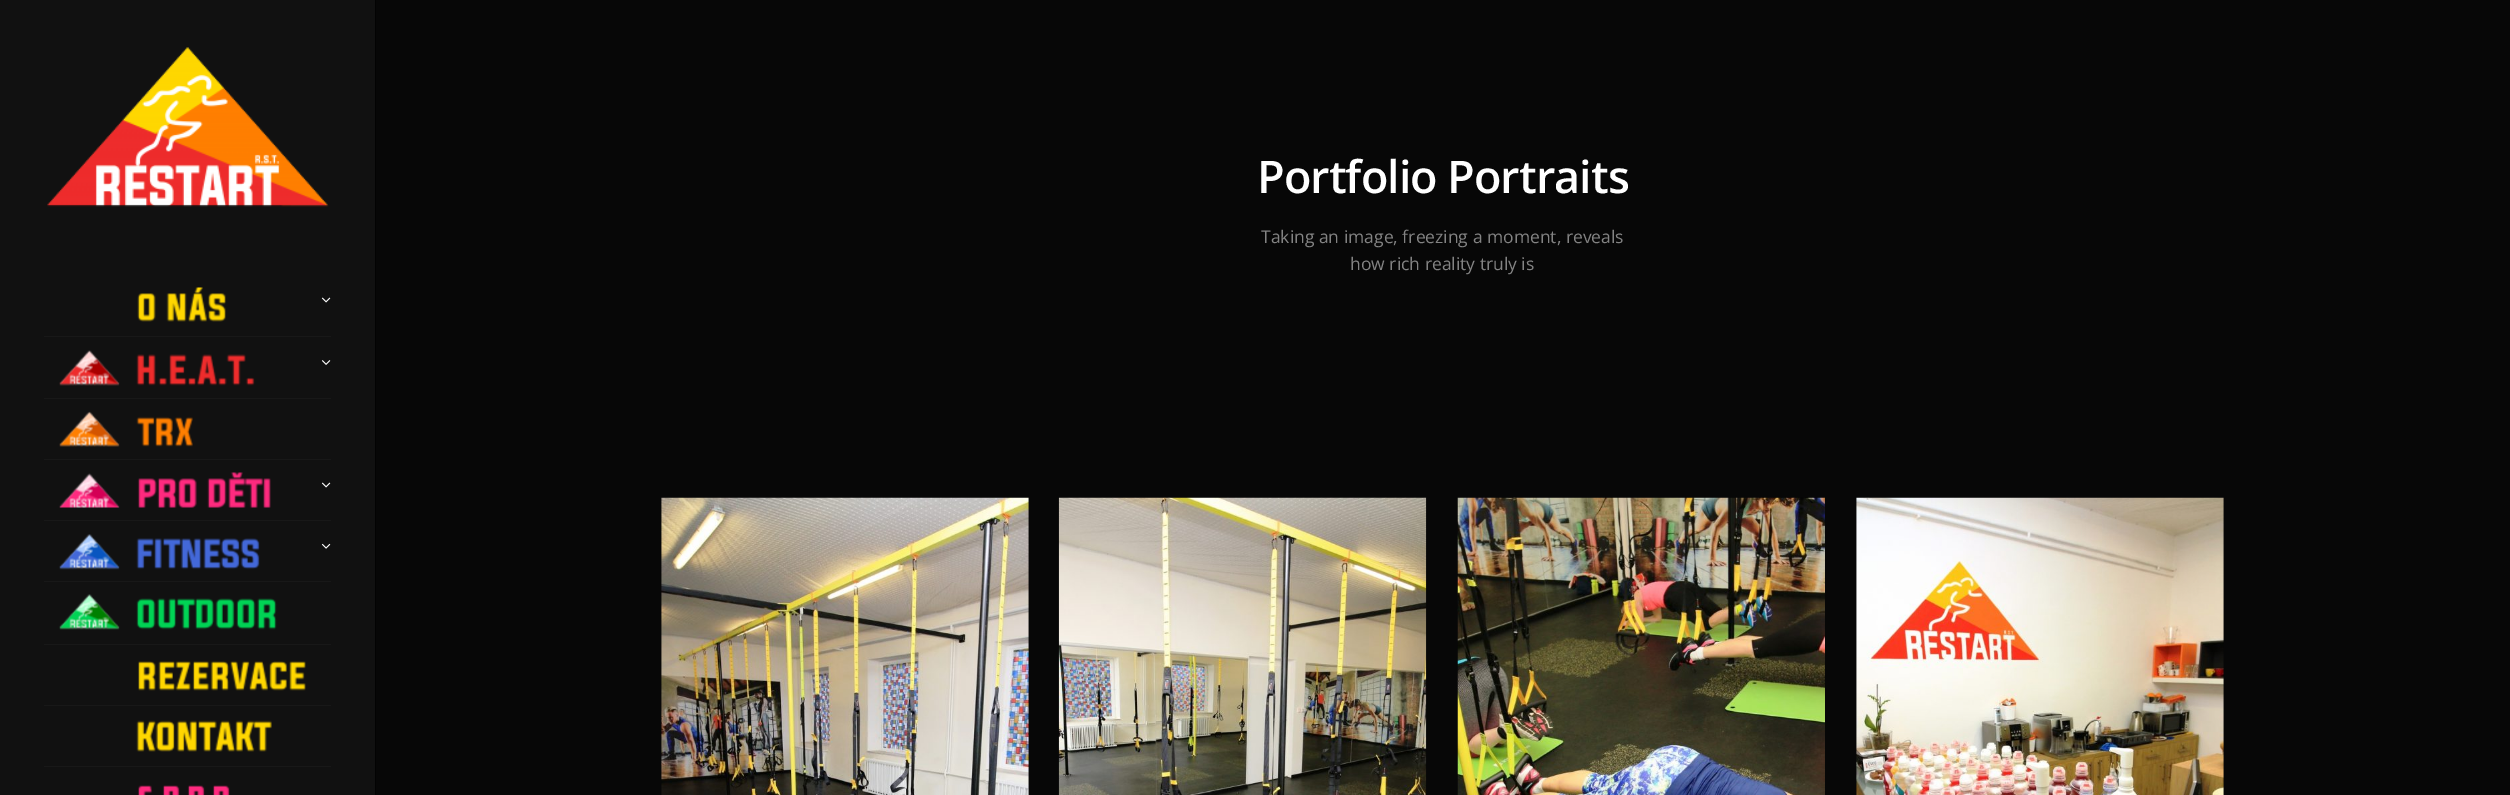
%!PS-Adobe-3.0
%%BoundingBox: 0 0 2510 795
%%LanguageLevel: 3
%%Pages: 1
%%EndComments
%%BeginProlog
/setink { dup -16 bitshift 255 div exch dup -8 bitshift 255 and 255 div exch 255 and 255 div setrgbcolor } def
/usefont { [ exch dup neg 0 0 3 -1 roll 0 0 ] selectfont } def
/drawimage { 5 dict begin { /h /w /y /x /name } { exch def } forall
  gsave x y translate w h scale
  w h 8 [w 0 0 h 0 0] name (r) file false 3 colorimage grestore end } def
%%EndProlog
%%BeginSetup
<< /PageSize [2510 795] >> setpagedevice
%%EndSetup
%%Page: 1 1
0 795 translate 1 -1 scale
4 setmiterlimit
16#111111 setink
0 0 2510 795 rectfill
(img1.raw) 47 47 282 160 drawimage
16#181818 setink
44 336 287 1 rectfill
(img2.raw) 137 287 89 35 drawimage
(img3.raw) 321 297 10 6 drawimage
44 398 287 1 rectfill
(img4.raw) 59 350 196 36 drawimage
(img5.raw) 321 360 10 5 drawimage
44 459 287 1 rectfill
(img6.raw) 59 411 134 36 drawimage
44 520 287 1 rectfill
(img7.raw) 59 472 212 36 drawimage
(img3.raw) 321 482 10 6 drawimage
44 581 287 1 rectfill
(img8.raw) 59 534 201 36 drawimage
(img9.raw) 321 543 10 6 drawimage
44 644 287 1 rectfill
(img10.raw) 59 594 218 36 drawimage
44 705 287 1 rectfill
(img11.raw) 138 661 168 30 drawimage
44 766 287 1 rectfill
(img12.raw) 136 720 136 32 drawimage
(img13.raw) 138 785 92 10 drawimage
16#070707 setink
376 0 2134 795 rectfill
16#030303 setink
375 0 1 795 rectfill
/OpenSans-SemiBold 45 usefont
16#FFFFFF setink
1257 193 moveto -1 0 (Portfolio Portraits) ashow
/OpenSans-Regular 17.5 usefont
16#838383 setink
1261 243 moveto (Taking an image, freezing a moment, reveals) show
1350 270 moveto (how rich reality truly is) show
(img14.raw) 661 497 368 298 drawimage
(img15.raw) 1058 497 369 298 drawimage
(img16.raw) 1457 497 368 298 drawimage
(img17.raw) 1856 497 368 298 drawimage
showpage
%%EOF
